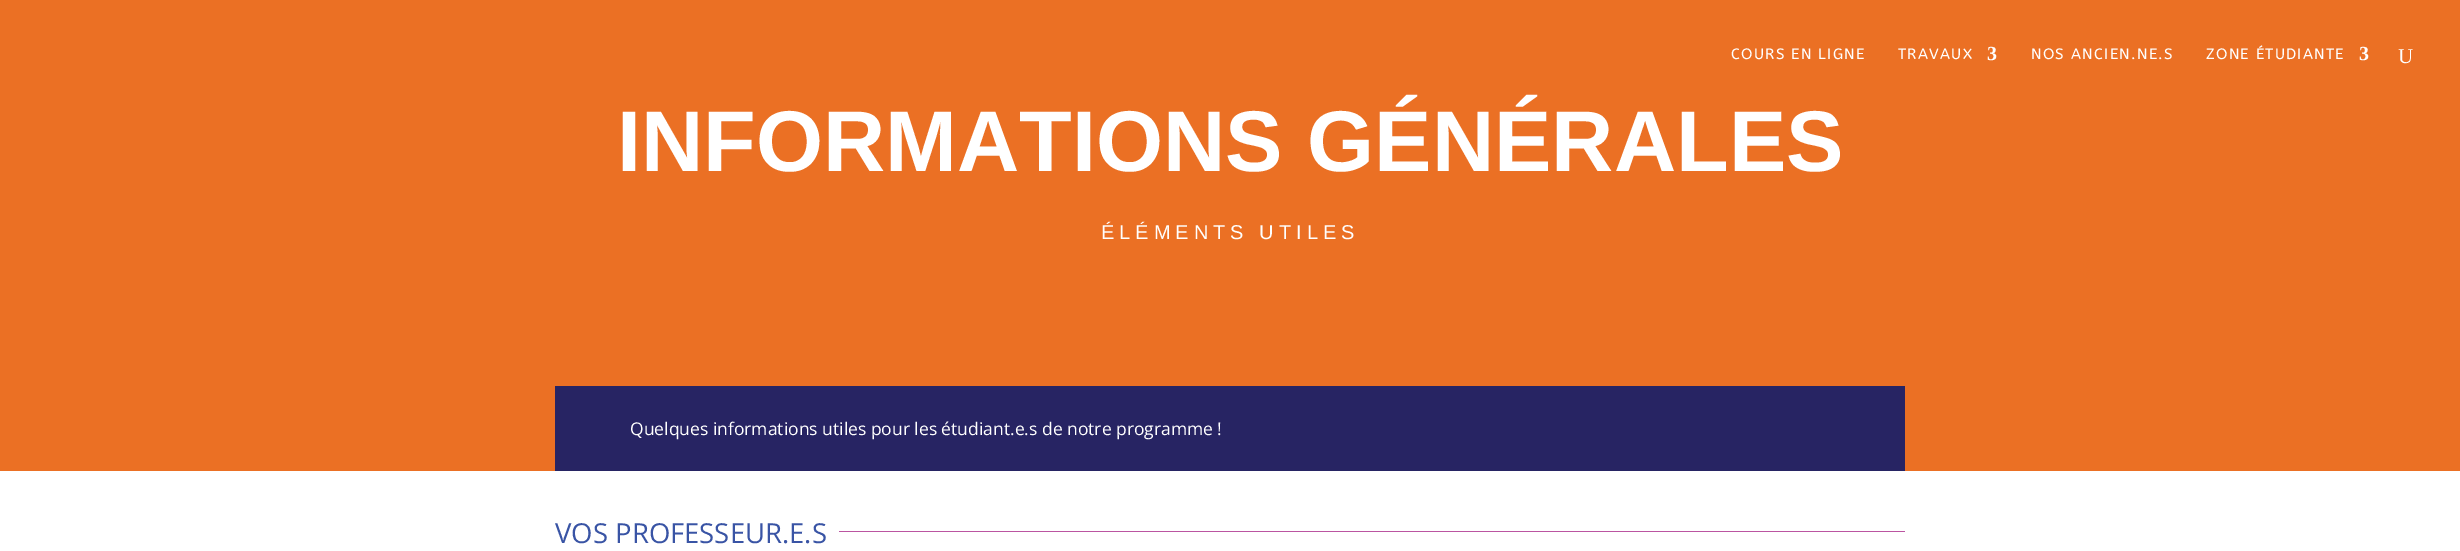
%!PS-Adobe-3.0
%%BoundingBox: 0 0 2460 551
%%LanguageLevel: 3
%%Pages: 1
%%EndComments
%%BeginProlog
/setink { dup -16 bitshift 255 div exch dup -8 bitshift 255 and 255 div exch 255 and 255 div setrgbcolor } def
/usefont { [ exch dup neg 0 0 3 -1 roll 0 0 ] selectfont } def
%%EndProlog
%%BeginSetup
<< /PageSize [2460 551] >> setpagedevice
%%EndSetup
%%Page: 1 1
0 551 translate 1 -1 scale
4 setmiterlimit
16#FFFFFF setink
0 0 2460 551 rectfill
16#EB7024 setink
0 0 2460 471 rectfill
/ABeeZee-Regular 15 usefont
16#FFFFFF setink
1731 59 moveto 1.25 0 (COURS EN LIGNE) ashow
1898 59 moveto 1.25 0 (TRAVAUX) ashow
/LiberationSerif-Bold 20 usefont
1987 60 moveto 1.25 0 (3) ashow
/ABeeZee-Regular 15 usefont
2031 59 moveto 1.25 0 (NOS ANCIEN.NE.S) ashow
2206 59 moveto 1.25 0 (ZONE ÉTUDIANTE) ashow
/LiberationSerif-Bold 20 usefont
2359 60 moveto 1.25 0 (3) ashow
/LiberationSerif-Regular 21 usefont
2398 63 moveto (U) show
/LiberationSans-Bold 86.25 usefont
617 171 moveto (INFORMATIONS GÉNÉRALES) show
/LiberationSans-Regular 20 usefont
1101 239 moveto 5 0 (ÉLÉMENTS UTILES) ashow
16#272463 setink
555 386 1350 85 rectfill
/OpenSans-Regular 17.5 usefont
16#FFFFFF setink
630 435 moveto (Quelques informations utiles pour les étudiant.e.s de notre programme !) show
/OpenSans-Regular 27.5 usefont
16#3954A5 setink
555 543 moveto (VOS PROFESSEUR.E.S) show
16#BB55A1 setink
839 531 1066 1 rectfill
showpage
%%EOF
